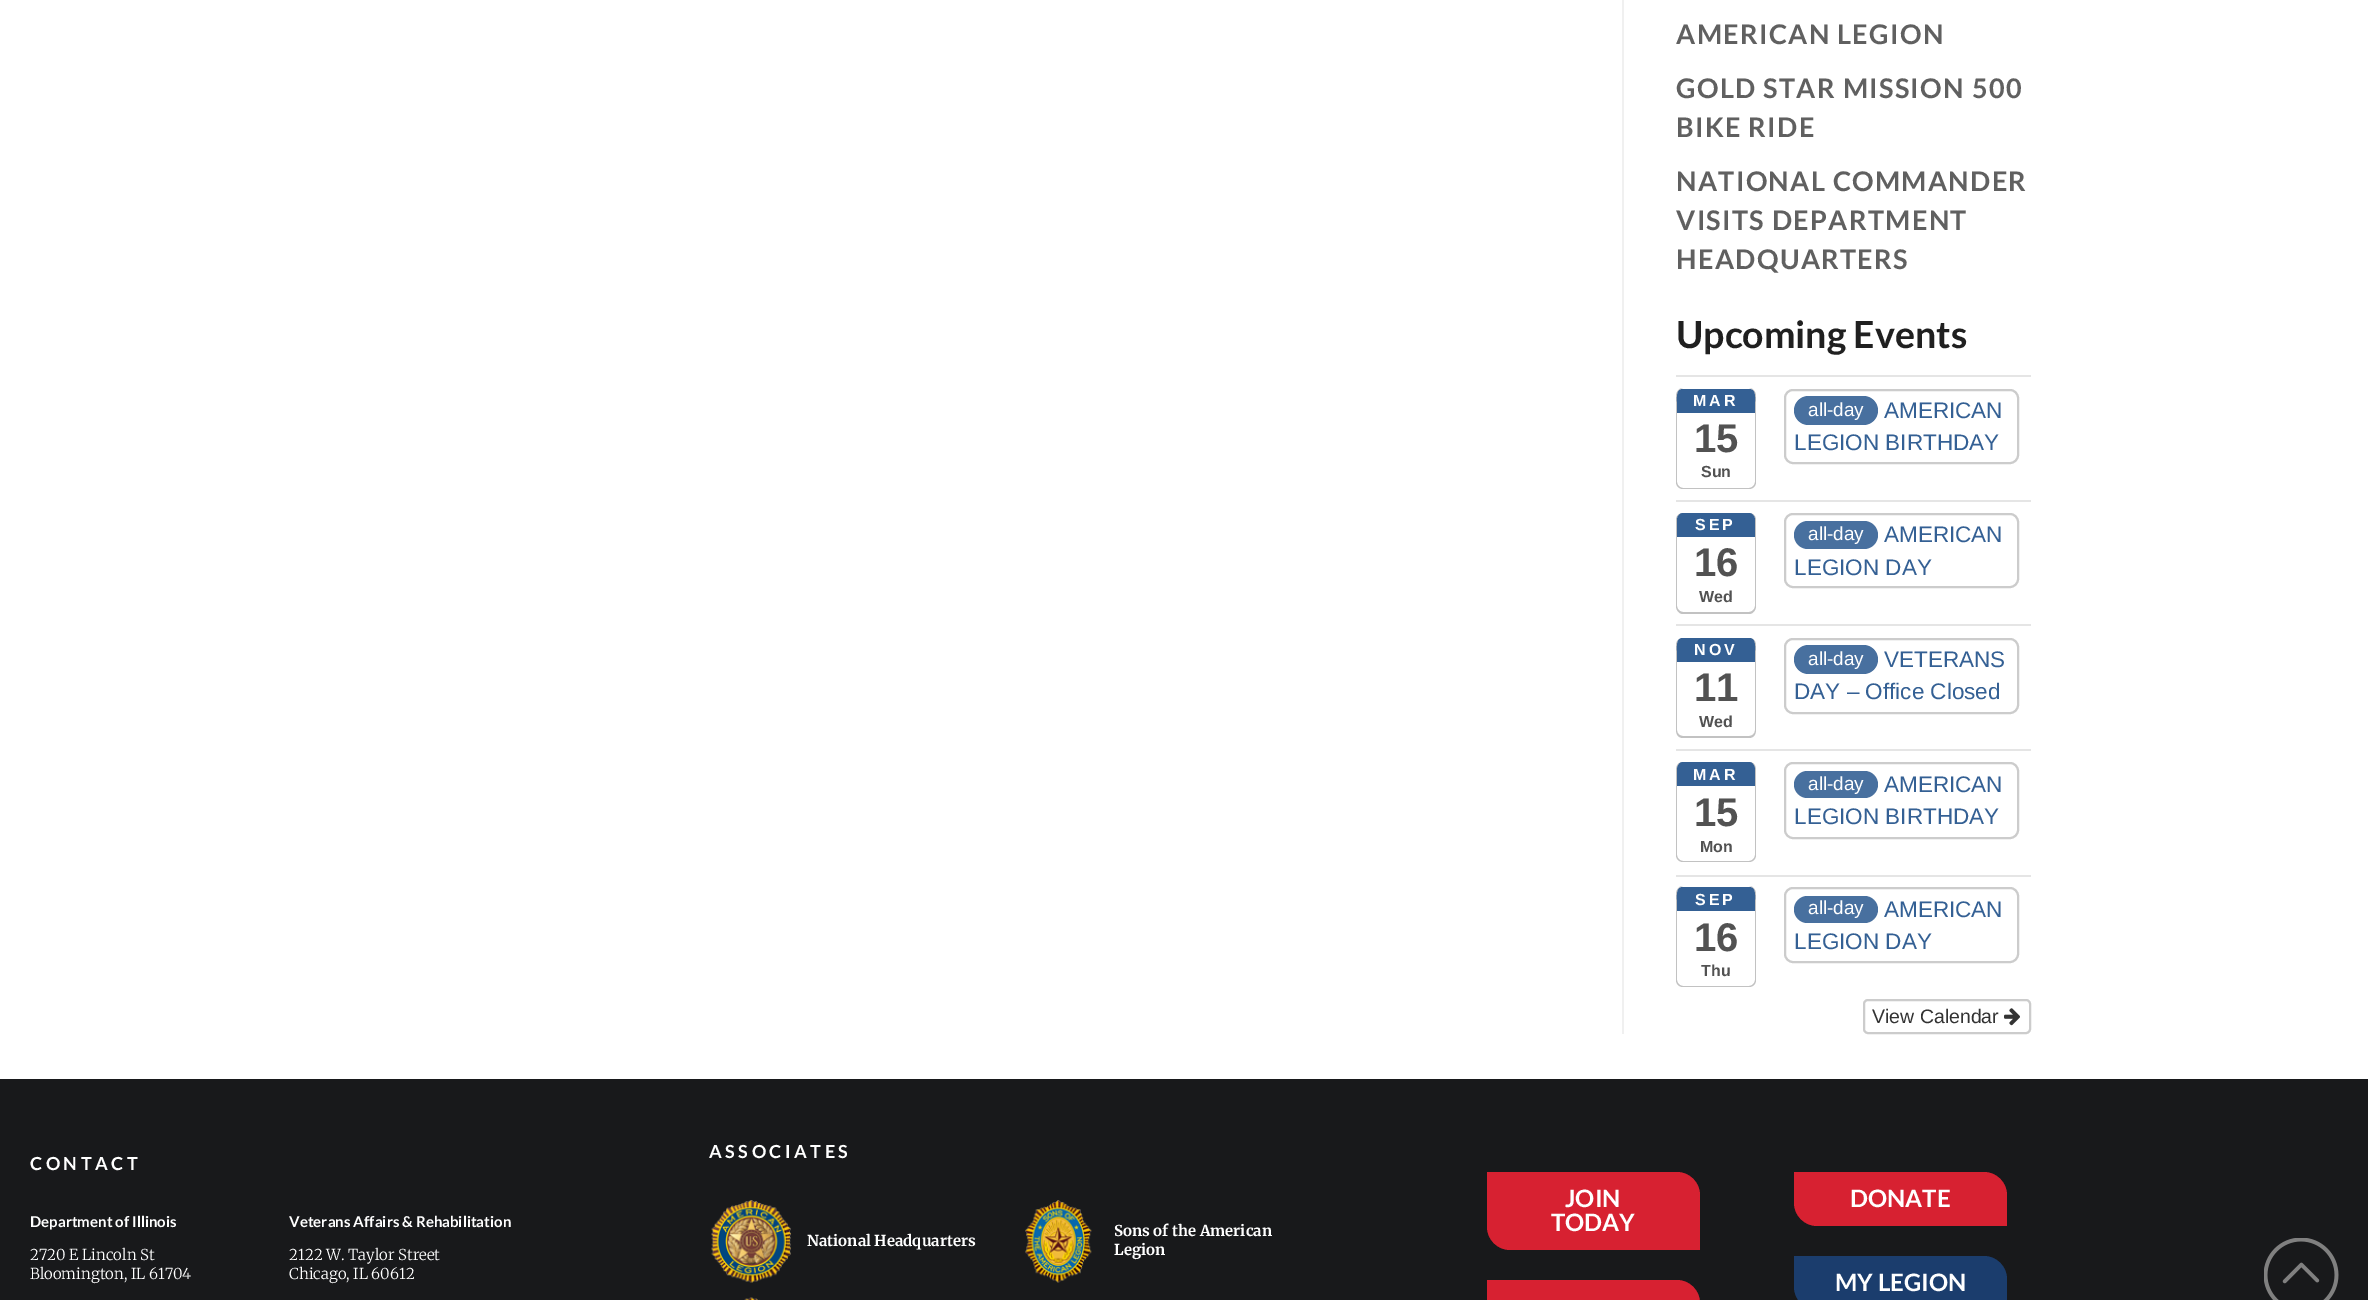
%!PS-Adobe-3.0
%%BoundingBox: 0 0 2368 1300
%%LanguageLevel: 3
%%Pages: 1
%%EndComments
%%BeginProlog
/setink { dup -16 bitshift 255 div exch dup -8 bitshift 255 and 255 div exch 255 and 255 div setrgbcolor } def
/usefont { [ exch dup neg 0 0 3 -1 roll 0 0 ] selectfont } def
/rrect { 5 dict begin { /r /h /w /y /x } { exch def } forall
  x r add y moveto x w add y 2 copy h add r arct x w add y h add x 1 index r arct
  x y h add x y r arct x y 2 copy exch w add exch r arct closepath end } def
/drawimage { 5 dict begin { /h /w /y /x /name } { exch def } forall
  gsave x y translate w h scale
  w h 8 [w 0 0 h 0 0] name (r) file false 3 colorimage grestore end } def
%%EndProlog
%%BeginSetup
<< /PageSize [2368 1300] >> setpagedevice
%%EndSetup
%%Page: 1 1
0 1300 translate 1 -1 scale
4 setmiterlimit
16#FFFFFF setink
0 0 2368 1300 rectfill
16#F0F0F0 setink
1622 0 2 1034 rectfill
/Lato-Bold 27 usefont
16#606060 setink
1676 44 moveto 1.35 0 (AMERICAN LEGION) ashow
1676 98 moveto 1.35 0 (GOLD STAR MISSION 500) ashow
1676 137 moveto 1.35 0 (BIKE RIDE) ashow
1676 191 moveto 1.35 0 (NATIONAL COMMANDER) ashow
1676 230 moveto 1.35 0 (VISITS DEPARTMENT) ashow
1676 269 moveto 1.35 0 (HEADQUARTERS) ashow
/Lato-Bold 37.5 usefont
16#202020 setink
1676 348 moveto (Upcoming Events) show
16#E5E5E5 setink
1676 375 355 2 rectfill
16#C2C2C2 setink
1683 388 moveto 1749 388 lineto 1753 388 1756 392 1756 396 curveto 1756 482 lineto 1756 486 1753 489 1749 489 curveto 1683 489 lineto 1679 489 1676 486 1676 482 curveto 1676 396 lineto 1676 392 1679 388 1683 388 curveto closepath 1683 388 moveto 1749 388 lineto 1752 388 1755 392 1755 396 curveto 1755 482 lineto 1755 485 1752 488 1749 488 curveto 1683 488 lineto 1680 488 1677 485 1677 482 curveto 1677 396 lineto 1677 392 1680 388 1683 388 curveto closepath eofill
16#346094 setink
1683 389 moveto 1676 389 1677 397 1677 402 curveto 1677 413 lineto 1755 413 lineto 1755 402 lineto 1755 397 1756 389 1749 389 curveto closepath fill
/LiberationSans-Bold 16 usefont
16#FFFFFF setink
1693 406 moveto 3 0 (MAR) ashow
/LiberationSans-Bold 40 usefont
16#525252 setink
1694 452 moveto (15) show
/LiberationSans-Bold 16 usefont
1701 477 moveto (Sun) show
16#CCCCCC setink
2 setlinewidth
1785 390 233 73 8 rrect stroke
16#48709F setink
1794 396 84 29 14.5 rrect fill
/LiberationSans-Regular 19 usefont
16#FFFFFF setink
1808 416 moveto (all-day) show
/LiberationSans-Regular 22.5 usefont
16#346094 setink
1884 418 moveto (AMERICAN) show
1794 450 moveto (LEGION BIRTHDAY) show
16#E5E5E5 setink
1676 500 355 2 rectfill
16#C2C2C2 setink
1683 513 moveto 1749 513 lineto 1753 513 1756 516 1756 520 curveto 1756 606 lineto 1756 610 1753 614 1749 614 curveto 1683 614 lineto 1679 614 1676 610 1676 606 curveto 1676 520 lineto 1676 516 1679 513 1683 513 curveto closepath 1683 513 moveto 1749 513 lineto 1752 513 1755 516 1755 520 curveto 1755 606 lineto 1755 609 1752 612 1749 612 curveto 1683 612 lineto 1680 612 1677 609 1677 606 curveto 1677 520 lineto 1677 516 1680 513 1683 513 curveto closepath eofill
16#346094 setink
1683 513 moveto 1680 513 1677 516 1677 520 curveto 1677 537 lineto 1755 537 lineto 1755 520 lineto 1755 516 1752 513 1749 513 curveto closepath fill
/LiberationSans-Bold 16 usefont
16#FFFFFF setink
1695 530 moveto 3 0 (SEP) ashow
/LiberationSans-Bold 40 usefont
16#525252 setink
1694 576 moveto (16) show
/LiberationSans-Bold 16 usefont
1699 602 moveto (Wed) show
16#CCCCCC setink
1785 514 233 73 8 rrect stroke
16#48709F setink
1794 521 84 28 14 rrect fill
/LiberationSans-Regular 19 usefont
16#FFFFFF setink
1808 540 moveto (all-day) show
/LiberationSans-Regular 22.5 usefont
16#346094 setink
1884 542 moveto (AMERICAN) show
1794 575 moveto (LEGION DAY) show
16#E5E5E5 setink
1676 624 355 2 rectfill
16#C2C2C2 setink
1683 638 moveto 1749 638 lineto 1753 638 1756 641 1756 645 curveto 1756 730 lineto 1756 735 1753 738 1749 738 curveto 1683 738 lineto 1679 738 1676 735 1676 730 curveto 1676 645 lineto 1676 641 1679 638 1683 638 curveto closepath 1683 638 moveto 1749 638 lineto 1752 638 1755 641 1755 645 curveto 1755 730 lineto 1755 734 1752 736 1749 736 curveto 1683 736 lineto 1680 736 1677 734 1677 730 curveto 1677 645 lineto 1677 641 1680 638 1683 638 curveto closepath eofill
16#346094 setink
1683 638 moveto 1676 638 1677 646 1677 651 curveto 1677 662 lineto 1755 662 lineto 1755 651 lineto 1755 646 1756 638 1749 638 curveto closepath fill
/LiberationSans-Bold 16 usefont
16#FFFFFF setink
1694 655 moveto 3 0 (NOV) ashow
/LiberationSans-Bold 40 usefont
16#525252 setink
1694 701 moveto (11) show
/LiberationSans-Bold 16 usefont
1699 727 moveto (Wed) show
16#CCCCCC setink
1785 639 233 74 8 rrect stroke
16#48709F setink
1794 645 84 29 14.5 rrect fill
/LiberationSans-Regular 19 usefont
16#FFFFFF setink
1808 665 moveto (all-day) show
/LiberationSans-Regular 22.5 usefont
16#346094 setink
1884 667 moveto (VETERANS) show
1794 699 moveto (DAY – Office Closed) show
16#E5E5E5 setink
1676 749 355 2 rectfill
16#C2C2C2 setink
1683 762 moveto 1749 762 lineto 1753 762 1756 765 1756 770 curveto 1756 855 lineto 1756 859 1753 862 1749 862 curveto 1683 862 lineto 1679 862 1676 859 1676 855 curveto 1676 770 lineto 1676 765 1679 762 1683 762 curveto closepath 1683 762 moveto 1749 762 lineto 1752 762 1755 765 1755 770 curveto 1755 855 lineto 1755 858 1752 861 1749 861 curveto 1683 861 lineto 1680 861 1677 858 1677 855 curveto 1677 770 lineto 1677 765 1680 762 1683 762 curveto closepath eofill
16#346094 setink
1683 762 moveto 1680 762 1677 765 1677 770 curveto 1677 786 lineto 1755 786 lineto 1755 770 lineto 1755 765 1752 762 1749 762 curveto closepath fill
/LiberationSans-Bold 16 usefont
16#FFFFFF setink
1693 780 moveto 3 0 (MAR) ashow
/LiberationSans-Bold 40 usefont
16#525252 setink
1694 826 moveto (15) show
/LiberationSans-Bold 16 usefont
1700 852 moveto (Mon) show
16#CCCCCC setink
1785 763 233 75 8 rrect stroke
16#48709F setink
1794 771 84 27 13.5 rrect fill
/LiberationSans-Regular 19 usefont
16#FFFFFF setink
1808 790 moveto (all-day) show
/LiberationSans-Regular 22.5 usefont
16#346094 setink
1884 792 moveto (AMERICAN) show
1794 824 moveto (LEGION BIRTHDAY) show
16#E5E5E5 setink
1676 875 355 2 rectfill
16#C2C2C2 setink
1683 886 moveto 1749 886 lineto 1753 886 1756 890 1756 894 curveto 1756 980 lineto 1756 984 1753 987 1749 987 curveto 1683 987 lineto 1679 987 1676 984 1676 980 curveto 1676 894 lineto 1676 890 1679 886 1683 886 curveto closepath 1683 886 moveto 1749 886 lineto 1752 886 1755 890 1755 894 curveto 1755 980 lineto 1755 983 1752 986 1749 986 curveto 1683 986 lineto 1680 986 1677 983 1677 980 curveto 1677 894 lineto 1677 890 1680 886 1683 886 curveto closepath eofill
16#346094 setink
1683 887 moveto 1676 887 1677 895 1677 900 curveto 1677 911 lineto 1755 911 lineto 1755 900 lineto 1755 895 1756 887 1749 887 curveto closepath fill
/LiberationSans-Bold 16 usefont
16#FFFFFF setink
1695 905 moveto 3 0 (SEP) ashow
/LiberationSans-Bold 40 usefont
16#525252 setink
1694 951 moveto (16) show
/LiberationSans-Bold 16 usefont
1701 976 moveto (Thu) show
16#CCCCCC setink
1785 888 233 74 8 rrect stroke
16#48709F setink
1794 896 84 27 13.5 rrect fill
/LiberationSans-Regular 19 usefont
16#FFFFFF setink
1808 914 moveto (all-day) show
/LiberationSans-Regular 22.5 usefont
16#346094 setink
1884 917 moveto (AMERICAN) show
1794 949 moveto (LEGION DAY) show
16#CCCCCC setink
1864 1000 166 33 4 rrect stroke
/LiberationSans-Regular 19.5 usefont
16#333333 setink
1872 1023 moveto (View Calendar) show
(img1.raw) 2004 1008 16 18 drawimage
16#18191B setink
0 1079 2368 221 rectfill
/Lato-Bold 18 usefont
16#FFFFFF setink
30 1170 moveto 3.5 0 (CONTACT) ashow
/Lato-Bold 15 usefont
30 1227 moveto (Department of Illinois) show
/Merriweather-Light 15 usefont
30 1260 moveto (2720 E Lincoln St) show
30 1279 moveto (Bloomington, IL 61704) show
/Lato-Bold 15 usefont
289 1227 moveto (Veterans Affairs & Rehabilitation) show
/Merriweather-Light 15 usefont
289 1260 moveto (2122 W. Taylor Street) show
289 1279 moveto (Chicago, IL 60612) show
/Lato-Bold 18 usefont
709 1158 moveto 3.5 0 (ASSOCIATES) ashow
(img2.raw) 711 1200 80 83 drawimage
/Merriweather-Bold 15 usefont
807 1246 moveto (National Headquarters) show
(img3.raw) 744 1297 16 3 drawimage
(img4.raw) 1025 1200 67 83 drawimage
1114 1236 moveto (Sons of the American) show
1114 1255 moveto (Legion) show
16#D72131 setink
1487 1172 moveto 1677 1172 lineto 1689.5 1172 1700 1182.5 1700 1195 curveto 1700 1250 lineto 1510 1250 lineto 1497.5 1250 1487 1239.5 1487 1227 curveto closepath fill
/Lato-Bold 24 usefont
16#FFFFFF setink
1565 1207 moveto (JOIN) show
1551 1231 moveto (TODAY) show
16#D72131 setink
1487 1280 moveto 1677 1280 lineto 1689.5 1280 1700 1290.5 1700 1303 curveto 1700 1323 lineto 1510 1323 lineto 1497.5 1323 1487 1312.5 1487 1300 curveto closepath fill
1794 1172 moveto 1984 1172 lineto 1996.5 1172 2007 1182.5 2007 1195 curveto 2007 1226 lineto 1817 1226 lineto 1804.5 1226 1794 1215.5 1794 1203 curveto closepath fill
16#FFFFFF setink
1850 1207 moveto (DONATE) show
16#1B3D6D setink
1794 1256 moveto 1984 1256 lineto 1996.5 1256 2007 1266.5 2007 1279 curveto 2007 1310 lineto 1817 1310 lineto 1804.5 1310 1794 1299.5 1794 1287 curveto closepath fill
16#FFFFFF setink
1835 1291 moveto (MY LEGION) show
(img5.raw) 2264 1238 75 62 drawimage
showpage
%%EOF
